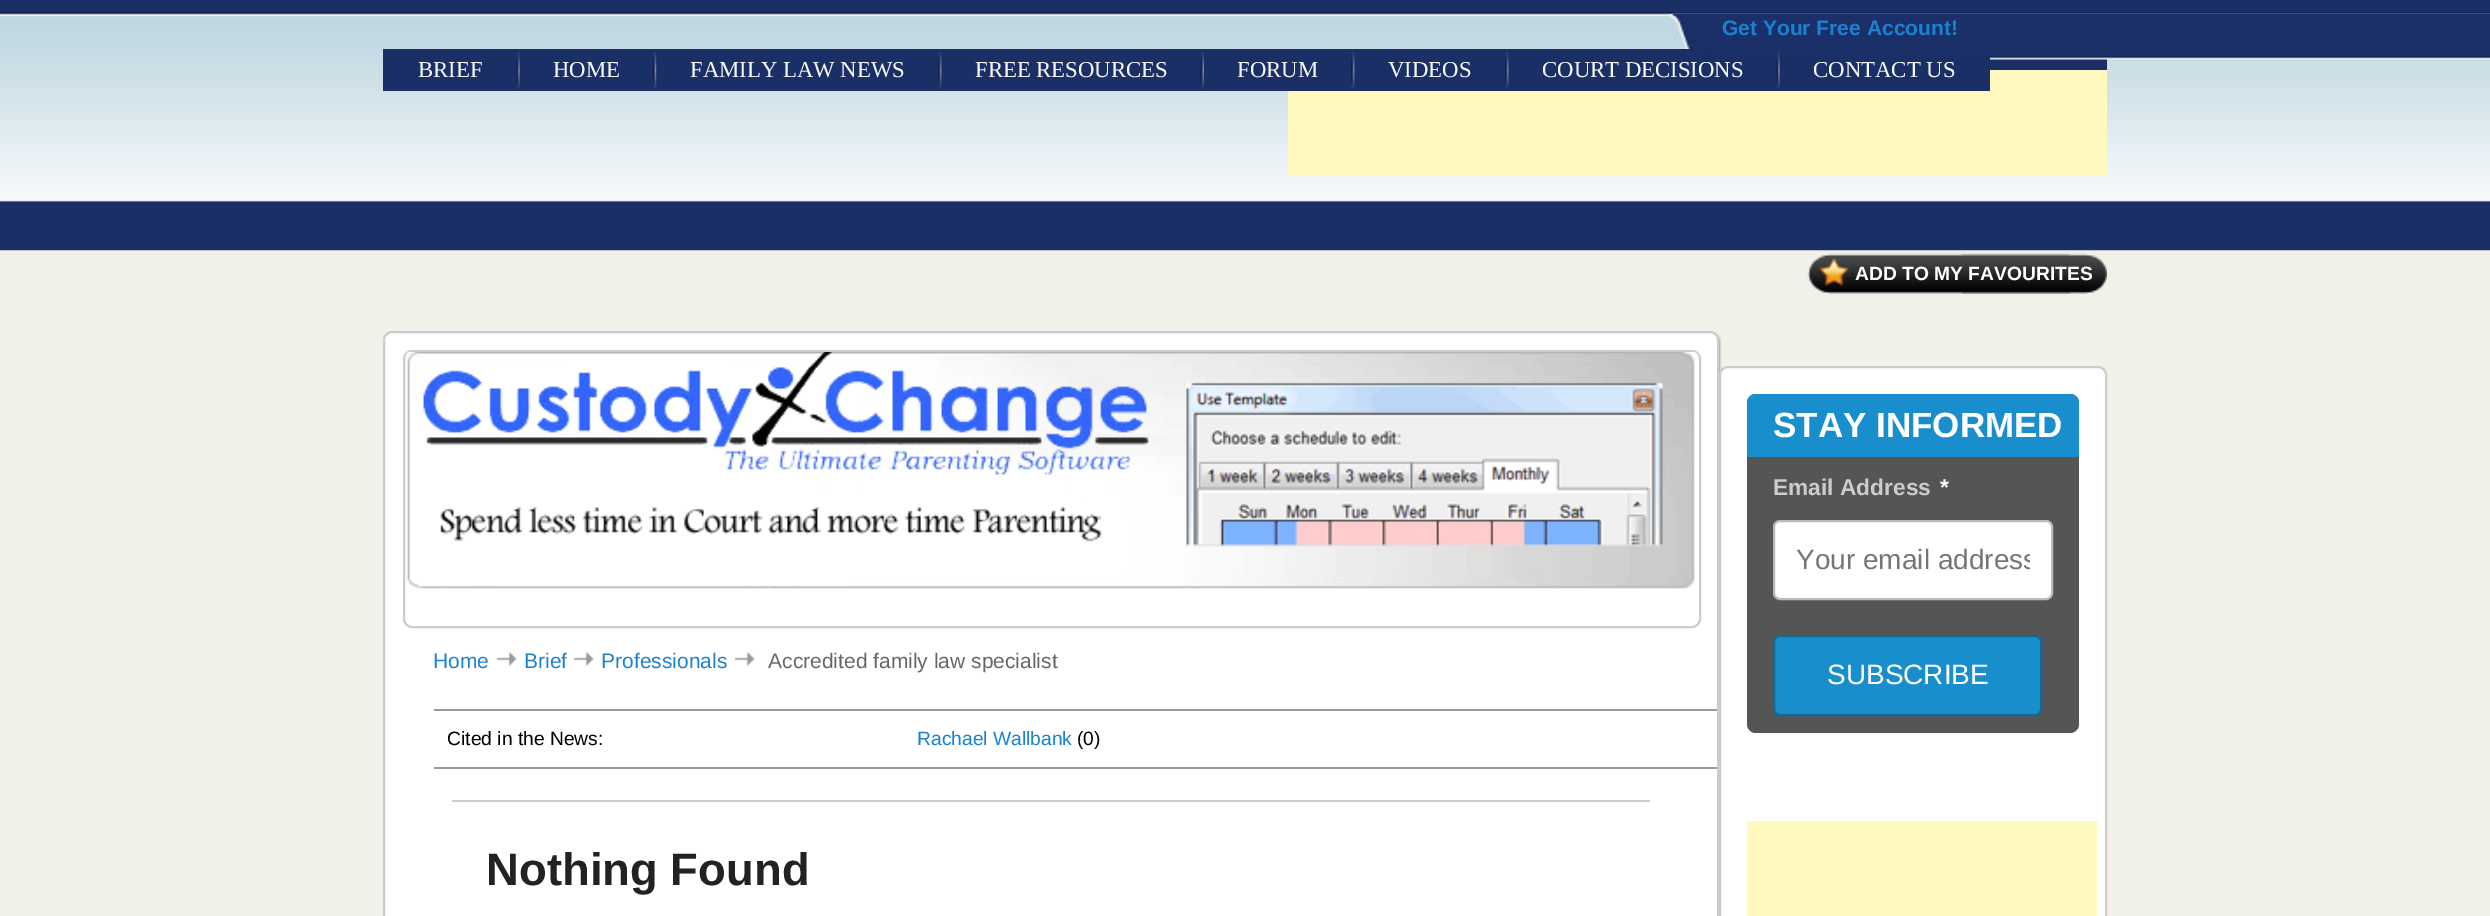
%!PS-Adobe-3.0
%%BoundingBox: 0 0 2490 916
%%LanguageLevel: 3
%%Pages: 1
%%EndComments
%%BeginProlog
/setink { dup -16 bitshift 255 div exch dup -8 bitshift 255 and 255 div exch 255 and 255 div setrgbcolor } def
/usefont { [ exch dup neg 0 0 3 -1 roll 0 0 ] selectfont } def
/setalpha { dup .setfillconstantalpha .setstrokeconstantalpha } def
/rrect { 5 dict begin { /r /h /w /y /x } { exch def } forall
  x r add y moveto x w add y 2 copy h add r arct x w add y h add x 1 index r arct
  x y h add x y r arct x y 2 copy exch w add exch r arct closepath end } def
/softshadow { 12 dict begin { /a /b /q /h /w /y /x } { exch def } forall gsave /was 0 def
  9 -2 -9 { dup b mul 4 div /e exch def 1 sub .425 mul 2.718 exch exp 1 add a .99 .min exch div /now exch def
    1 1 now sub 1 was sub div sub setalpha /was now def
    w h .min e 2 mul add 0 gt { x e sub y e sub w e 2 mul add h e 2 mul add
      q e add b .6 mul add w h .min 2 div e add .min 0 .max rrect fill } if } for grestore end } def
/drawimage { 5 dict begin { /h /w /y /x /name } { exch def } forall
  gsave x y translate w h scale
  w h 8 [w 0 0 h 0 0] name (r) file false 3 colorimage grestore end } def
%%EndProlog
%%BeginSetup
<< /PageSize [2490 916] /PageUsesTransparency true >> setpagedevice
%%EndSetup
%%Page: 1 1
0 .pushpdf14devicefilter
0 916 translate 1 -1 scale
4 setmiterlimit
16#F1F1E9 setink
0 0 2490 916 rectfill
(img1.raw) 0 0 2490 251 drawimage
16#1B2F67 setink
383 49 1724 42 rectfill
(img2.raw) 1669 14 821 46 drawimage
/LiberationSans-Bold 21 usefont
16#1982D1 setink
1722 35 moveto (Get Your Free Account!) show
/LiberationSerif-Regular 22.75 usefont
16#F8F8F8 setink
418 77 moveto (BRIEF) show
(img3.raw) 516 51 4 38 drawimage
553 77 moveto (HOME) show
(img4.raw) 652 51 5 38 drawimage
690 77 moveto (FAMILY LAW NEWS) show
(img5.raw) 938 51 4 38 drawimage
975 77 moveto (FREE RESOURCES) show
16#FFF9C0 setink
1288 70 819 105 rectfill
16#1B2F67 setink
1288 70 219 21 rectfill
(img6.raw) 1200 51 4 38 drawimage
16#F8F8F8 setink
1237 77 moveto (FORUM) show
(img5.raw) 1351 51 4 38 drawimage
1388 77 moveto (VIDEOS) show
16#1B2F67 setink
1507 49 271 42 rectfill
(img5.raw) 1505 51 4 38 drawimage
16#F8F8F8 setink
1542 77 moveto (COURT DECISIONS) show
16#1B2F67 setink
1778 55 212 36 rectfill
(img3.raw) 1776 51 4 38 drawimage
16#F8F8F8 setink
1813 77 moveto (CONTACT US) show
(img7.raw) 1807 253 300 41 drawimage
/LiberationSans-Bold 19.25 usefont
16#FFFFFF setink
1855 280 moveto (ADD TO MY FAVOURITES) show
16#999999 setink
385 333 1335 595 9 1 1 softshadow
16#FFFFFF setink
1720 367 386 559 8 rrect gsave fill grestore
16#CCCCCC setink
2 setlinewidth
stroke
16#555555 setink
1747 394 332 339 9 rrect fill
16#188ECD setink
1756 394 moveto 2070 394 lineto 2075 394 2079 398 2079 403 curveto 2079 457 lineto 1747 457 lineto 1747 403 lineto 1747 398 1751 394 1756 394 curveto closepath fill
/LiberationSans-Bold 35 usefont
16#FFFFFF setink
1773 437 moveto (STAY INFORMED) show
/LiberationSans-Bold 22.75 usefont
16#CCCCCC setink
1773 495 moveto (Email Address) show
16#FFFFFF setink
1940 495 moveto (*) show
1774 521 278 78 6 rrect gsave fill grestore
16#BBBBBB setink
stroke
gsave
1796 544 234 32 rectclip
/LiberationSans-Regular 28 usefont
16#757575 setink
1796 569 moveto (Your email address) show
grestore
16#188ECD setink
1774 636 267 79 6 rrect gsave fill grestore
16#106999 setink
stroke
/LiberationSans-Regular 28 usefont
16#FFFFFF setink
1827 684 moveto (SUBSCRIBE) show
16#FFF9C0 setink
1747 821 350 95 rectfill
16#FFFFFF setink
384 332 1334 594 8 rrect gsave fill grestore
16#CCCCCC setink
stroke
404 351 1296 276 8 rrect stroke
(img8.raw) 406 352 1292 237 drawimage
/LiberationSans-Regular 21 usefont
16#1982D1 setink
433 668 moveto (Home) show
(img9.raw) 496 652 21 14 drawimage
524 668 moveto (Brief) show
(img9.raw) 573 652 21 14 drawimage
601 668 moveto (Professionals) show
(img10.raw) 734 652 21 14 drawimage
16#666666 setink
768 668 moveto (Accredited family law specialist) show
16#999999 setink
434 709 1283 2 rectfill
434 767 1283 2 rectfill
/LiberationSans-Regular 19.25 usefont
16#000000 setink
447 745 moveto (Cited in the News:) show
16#1982D1 setink
917 745 moveto (Rachael Wallbank) show
16#000000 setink
1077 745 moveto (\(0\)) show
16#CCCCCC setink
452 800 1198 2 rectfill
/LiberationSans-Bold 45.5 usefont
16#222222 setink
486 885 moveto (Nothing Found) show
.poppdf14devicefilter showpage
%%EOF
